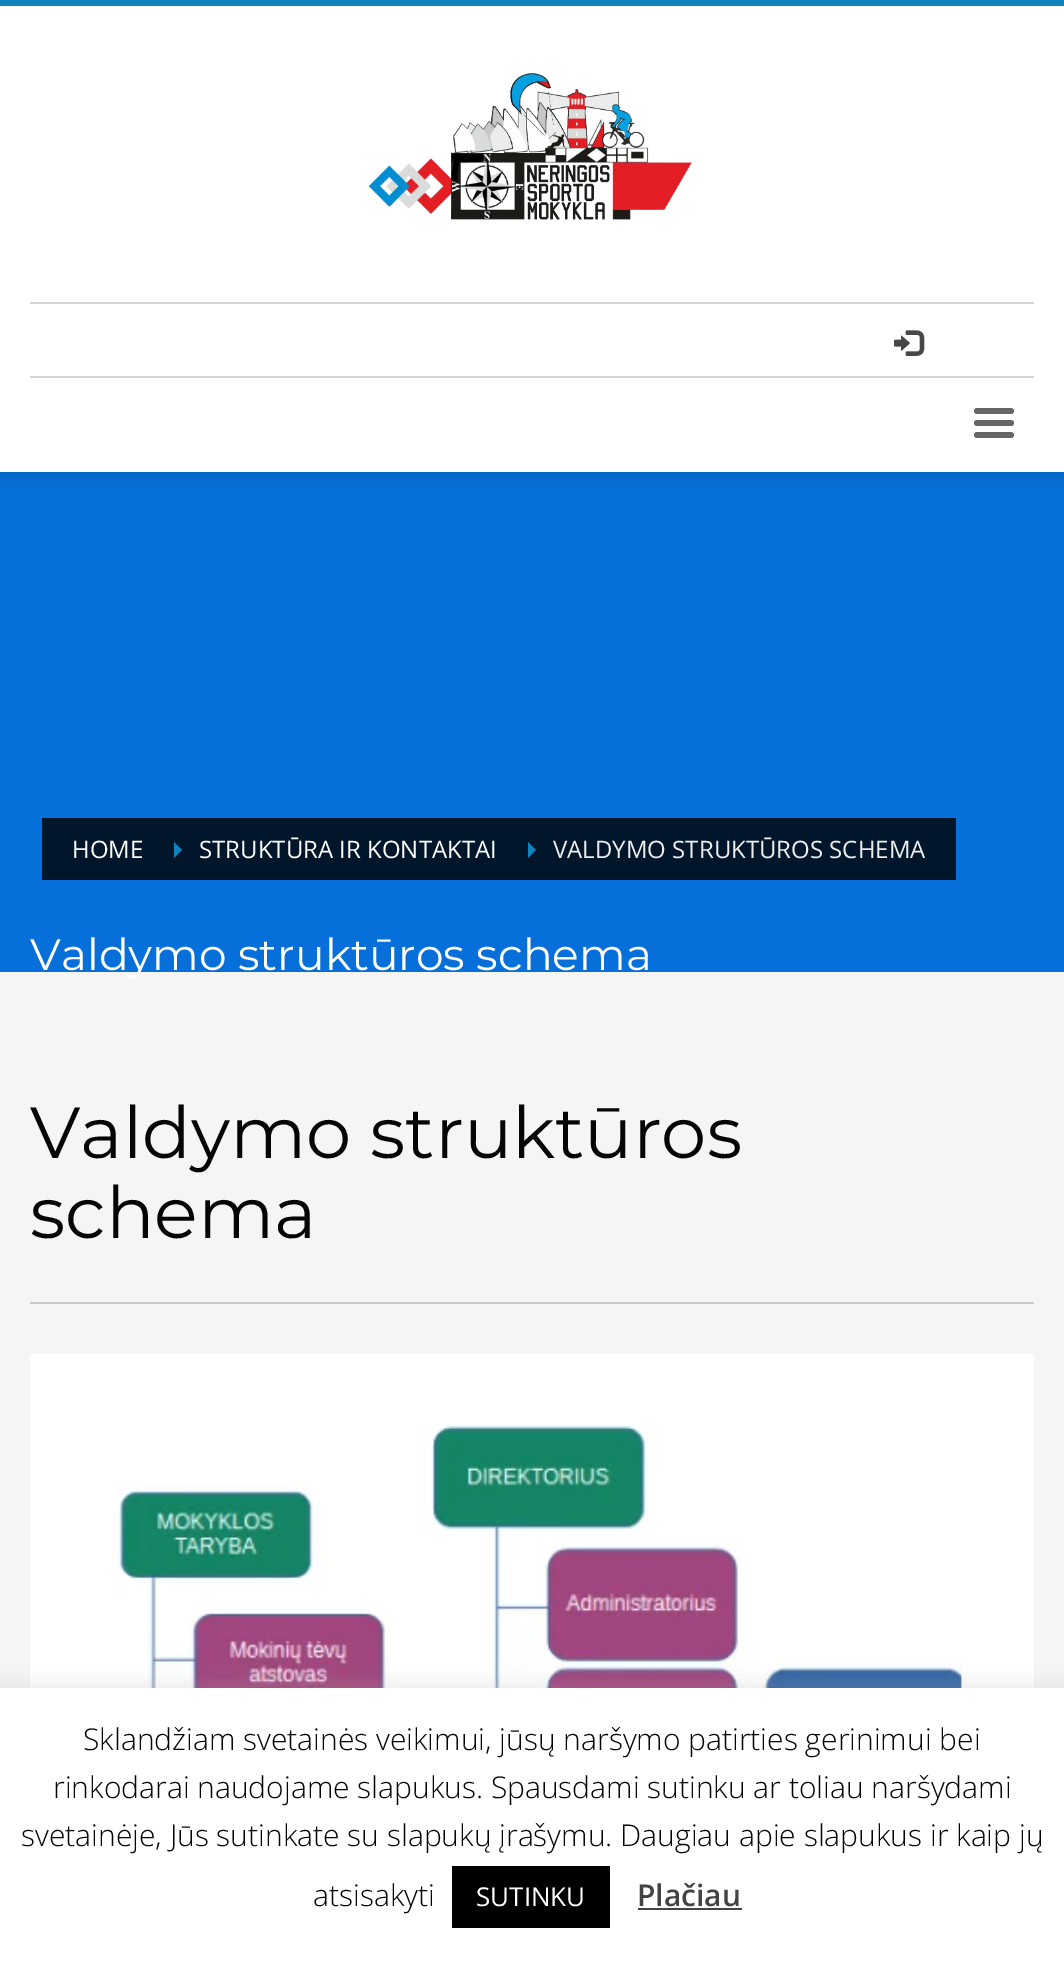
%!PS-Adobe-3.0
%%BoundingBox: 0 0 1064 1961
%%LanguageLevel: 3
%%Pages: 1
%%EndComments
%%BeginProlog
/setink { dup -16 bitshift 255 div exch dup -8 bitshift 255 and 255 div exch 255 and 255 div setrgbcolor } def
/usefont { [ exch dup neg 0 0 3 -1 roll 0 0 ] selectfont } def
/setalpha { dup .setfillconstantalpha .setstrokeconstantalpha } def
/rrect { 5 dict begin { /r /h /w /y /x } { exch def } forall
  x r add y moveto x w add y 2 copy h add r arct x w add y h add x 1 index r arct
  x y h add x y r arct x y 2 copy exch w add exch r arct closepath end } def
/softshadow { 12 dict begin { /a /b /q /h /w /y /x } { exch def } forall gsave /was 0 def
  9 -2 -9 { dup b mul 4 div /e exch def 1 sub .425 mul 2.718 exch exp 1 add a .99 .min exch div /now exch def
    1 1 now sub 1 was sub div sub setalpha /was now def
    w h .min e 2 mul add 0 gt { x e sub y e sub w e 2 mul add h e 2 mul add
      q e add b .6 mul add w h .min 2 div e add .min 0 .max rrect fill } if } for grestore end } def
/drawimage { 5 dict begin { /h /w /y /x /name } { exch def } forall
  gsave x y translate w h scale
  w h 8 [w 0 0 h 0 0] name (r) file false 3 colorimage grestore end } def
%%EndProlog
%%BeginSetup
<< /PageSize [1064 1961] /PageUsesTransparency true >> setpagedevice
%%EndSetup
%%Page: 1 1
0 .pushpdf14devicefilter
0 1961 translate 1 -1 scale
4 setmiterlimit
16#F5F5F5 setink
0 0 1064 1961 rectfill
16#066FD9 setink
0 472 1064 500 rectfill
16#000000 setink
0 6 1064 472 0 5 0.1 softshadow
16#FFFFFF setink
0 6 1064 466 rectfill
16#0F84BF setink
0 0 1064 6 rectfill
(img1.raw) 368 73 324 147 drawimage
16#D6D6D6 setink
30 302 1004 2 rectfill
(img2.raw) 894 330 31 26 drawimage
30 376 1004 2 rectfill
16#666666 setink
974 408 40 6 3 rrect fill
974 420 40 6 3 rrect fill
974 432 40 6 3 rrect fill
16#01162B setink
42 818 914 62 rectfill
/OpenSans-Regular 24 usefont
16#FFFFFF setink
72 858 moveto (HOME) show
16#0F84BF setink
174 858 moveto 174 842 lineto 182 850 lineto closepath fill
16#FFFFFF setink
199 858 moveto (STRUKTŪRA IR KONTAKTAI) show
16#0F84BF setink
528 858 moveto 528 842 lineto 536 850 lineto closepath fill
16#EEEEEE setink
553 858 moveto (VALDYMO STRUKTŪROS SCHEMA) show
/Montserrat-Regular 44 usefont
16#FFFFFF setink
30 970 moveto (Valdymo struktūros schema) show
16#CBCBCB setink
30 1302 1004 2 rectfill
/Montserrat-Regular 72 usefont
16#050505 setink
30 1158 moveto (Valdymo struktūros) show
30 1238 moveto (schema) show
(img3.raw) 30 1354 1004 334 drawimage
16#ACABAB setink
0 1686 1064 274 0 10 0.3 softshadow
16#FFFFFF setink
0 1688 1064 273 rectfill
/OpenSans-Light 30 usefont
16#050505 setink
[
    [(Sklandžiam svetainės veikimui, jūsų naršymo patirties gerinimui bei) 83 1750]
    [(rinkodarai naudojame slapukus. Spausdami sutinku ar toliau naršydami) 53 1798]
    [(svetainėje, Jūs sutinkate su slapukų įrašymu. Daugiau apie slapukus ir kaip jų) 21 1846]
    [(atsisakyti) 313 1906]
] { aload pop moveto show } forall
16#000000 setink
452 1866 158 62 rectfill
/OpenSans-Regular 26 usefont
16#FFFFFF setink
476 1906 moveto (SUTINKU) show
/OpenSans-SemiBold 30 usefont
16#444444 setink
637 1906 moveto (Plačiau) show
638 1908 104 2 rectfill
.poppdf14devicefilter showpage
%%EOF
